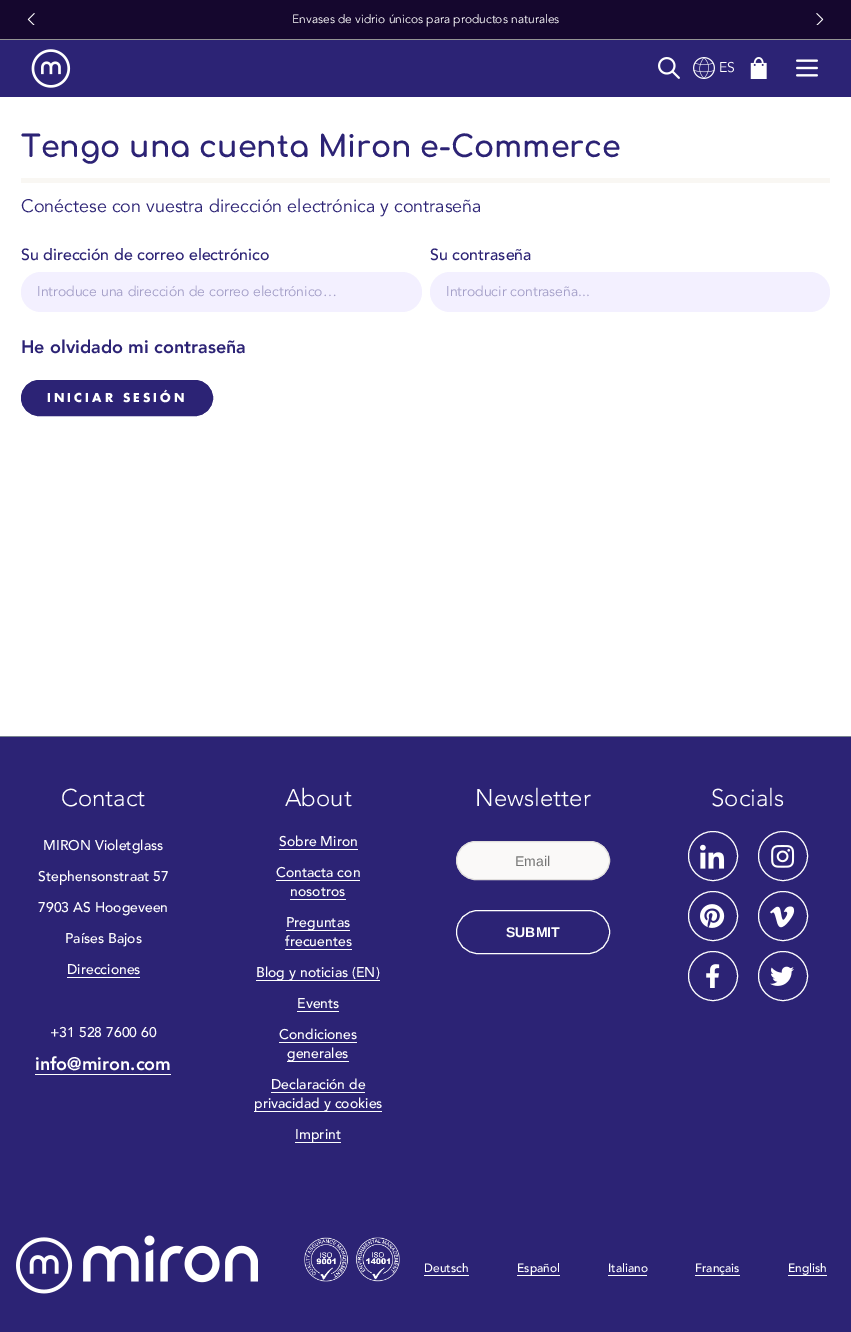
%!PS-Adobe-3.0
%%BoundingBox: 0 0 851 1332
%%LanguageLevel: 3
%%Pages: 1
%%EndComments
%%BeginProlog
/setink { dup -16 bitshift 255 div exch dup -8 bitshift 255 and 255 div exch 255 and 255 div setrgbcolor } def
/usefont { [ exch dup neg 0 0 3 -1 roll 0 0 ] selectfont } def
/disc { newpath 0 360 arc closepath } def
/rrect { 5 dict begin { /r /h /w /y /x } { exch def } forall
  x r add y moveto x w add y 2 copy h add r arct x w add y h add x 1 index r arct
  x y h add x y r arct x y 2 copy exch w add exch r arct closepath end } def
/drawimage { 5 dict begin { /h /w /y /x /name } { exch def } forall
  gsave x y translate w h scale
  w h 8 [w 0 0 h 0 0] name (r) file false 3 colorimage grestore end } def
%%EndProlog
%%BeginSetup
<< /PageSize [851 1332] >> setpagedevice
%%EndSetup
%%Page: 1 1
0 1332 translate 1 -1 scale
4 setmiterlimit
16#FFFFFF setink
0 0 851 1332 rectfill
[
    [0 40 851 57 16#2C2375]
    [0 0 851 39 16#15072E]
    [0 39 851 1 16#939393]
] { aload pop setink rectfill } forall
(img1.raw) 27 13 8 12 drawimage
/Avenir-Regular 12 usefont
16#FFFFFF setink
292 23 moveto (Envases de vidrio únicos para productos naturales) show
(img2.raw) 816 13 8 12 drawimage
(img3.raw) 31 49 40 39 drawimage
(img4.raw) 658 57 22 22 drawimage
(img5.raw) 693 57 22 22 drawimage
/Avenir-Regular 14 usefont
719 72 moveto (ES) show
(img6.raw) 750 57 17 22 drawimage
(img7.raw) 796 59 22 18 drawimage
16#F9F7F3 setink
21 178 809 5 rectfill
/Comfortaa-Bold 30 usefont
16#2C2375 setink
21 157 moveto (Tengo una cuenta Miron e-Commerce) show
/Avenir-Regular 18 usefont
21 212 moveto (Conéctese con vuestra dirección electrónica y contraseña) show
/Avenir-Medium 16 usefont
21 260 moveto (Su dirección de correo electrónico) show
16#F3F0FF setink
21 272 401 40 20 rrect fill
/Avenir-Regular 14 usefont
16#A49FC8 setink
37 296 moveto (Introduce una dirección de correo electrónico…) show
/Avenir-Medium 16 usefont
16#2C2375 setink
430 260 moveto (Su contraseña) show
16#F3F0FF setink
430 272 400 40 20 rrect fill
/Avenir-Regular 14 usefont
16#A49FC8 setink
446 296 moveto (Introducir contraseña...) show
/Avenir-Black 18 usefont
16#2C2375 setink
21 353 moveto (He olvidado mi contraseña) show
21.5 380.5 191 35 17.5 rrect gsave fill grestore
stroke
/Futura-Bold 12 usefont
16#FFFFFF setink
47 402 moveto 3 0 (INICIAR SESIÓN) ashow
16#2C2375 setink
0 737 851 595 rectfill
16#798490 setink
0 736 851 1 rectfill
/Avenir-Light 24 usefont
16#FFFFFF setink
61 806 moveto (Contact) show
/Avenir-Medium 14 usefont
[
    [(MIRON Violetglass) 43 850]
    [(Stephensonstraat 57) 38 881]
    [(7903 AS Hoogeveen) 38 912]
    [(Países Bajos) 65 943]
    [(Direcciones) 67 974]
] { aload pop moveto show } forall
67 977 73 1 rectfill
50 1037 moveto (+31 528 7600 60) show
/Avenir-Black 18 usefont
35 1070 moveto (info@miron.com) show
35 1074 136 1 rectfill
/Avenir-Light 24 usefont
285 806 moveto (About) show
/Avenir-Medium 14 usefont
279 846 moveto (Sobre Miron) show
279 849 79 1 rectfill
276 877 moveto (Contacta con) show
276 880 84 1 rectfill
290 896 moveto (nosotros) show
290 899 56 1 rectfill
286 930 64 1 rectfill
286 927 moveto (Preguntas) show
285 946 moveto (frecuentes) show
285 949 67 1 rectfill
256 980 124 1 rectfill
256 977 moveto (Blog y noticias \(EN\)) show
297 1008 moveto (Events) show
297 1011 42 1 rectfill
279 1039 moveto (Condiciones) show
279 1042 78 1 rectfill
287 1061 62 1 rectfill
287 1058 moveto (generales) show
271 1089 moveto (Declaración de) show
271 1092 94 1 rectfill
254 1111 128 1 rectfill
254 1108 moveto (privacidad y cookies) show
295 1142 46 1 rectfill
295 1139 moveto (Imprint) show
/Avenir-Light 24 usefont
475 806 moveto (Newsletter) show
16#FAF9F8 setink
456.5 841.5 153 38 19 rrect gsave fill grestore
16#E1DFDD setink
stroke
/LiberationSans-Regular 14 usefont
16#757575 setink
515 866 moveto (Email) show
16#FFFFFF setink
456.5 910.5 153 43 21.5 rrect stroke
/LiberationSans-Bold 14 usefont
506 937 moveto (SUBMIT) show
/Avenir-Light 24 usefont
711 806 moveto (Socials) show
713 856 24.5 disc stroke
(img8.raw) 700 844 25 25 drawimage
783 856 24.5 disc stroke
(img9.raw) 771 845 24 23 drawimage
713 916 24.5 disc stroke
(img10.raw) 700 904 25 24 drawimage
783 916 24.5 disc stroke
(img11.raw) 770 906 25 22 drawimage
713 976 24.5 disc stroke
(img12.raw) 706 964 14 24 drawimage
783 976 24.5 disc stroke
(img13.raw) 770 966 24 20 drawimage
(img14.raw) 16 1235 242 59 drawimage
(img15.raw) 304 1237 96 45 drawimage
/Avenir-Medium 12 usefont
424 1272 moveto (Deutsch) show
424 1275 45 1 rectfill
517 1275 43 1 rectfill
517 1272 moveto (Español) show
608 1272 moveto (Italiano) show
608 1275 39 1 rectfill
695 1272 moveto (Français) show
695 1275 45 1 rectfill
788 1272 moveto (English) show
788 1275 39 1 rectfill
showpage
%%EOF
